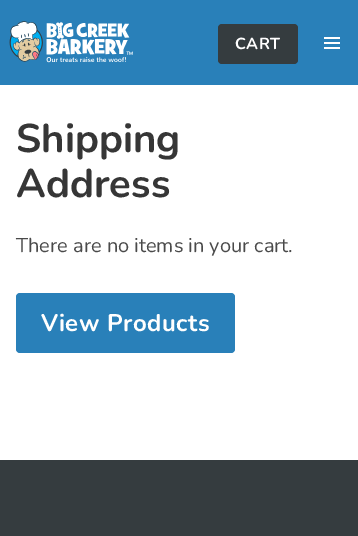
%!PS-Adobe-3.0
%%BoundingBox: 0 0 358 536
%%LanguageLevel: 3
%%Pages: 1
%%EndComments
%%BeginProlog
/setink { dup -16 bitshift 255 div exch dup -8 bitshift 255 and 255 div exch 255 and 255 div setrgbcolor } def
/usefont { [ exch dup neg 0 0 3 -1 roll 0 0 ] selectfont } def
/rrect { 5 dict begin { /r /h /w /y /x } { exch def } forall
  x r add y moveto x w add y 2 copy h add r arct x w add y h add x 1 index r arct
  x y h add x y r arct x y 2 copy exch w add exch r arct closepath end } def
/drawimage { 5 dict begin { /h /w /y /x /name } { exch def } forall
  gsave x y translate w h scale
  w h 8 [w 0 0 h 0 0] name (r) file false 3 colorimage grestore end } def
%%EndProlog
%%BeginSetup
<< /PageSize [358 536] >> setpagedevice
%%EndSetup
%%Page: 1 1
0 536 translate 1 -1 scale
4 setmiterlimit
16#FFFFFF setink
0 0 358 536 rectfill
16#2980B9 setink
0 0 358 85 rectfill
(img1.raw) 9 21 124 42 drawimage
16#353C3F setink
218 24 80 40 4 rrect fill
/Nunito-Bold 16 usefont
16#FFFFFF setink
235 49 moveto 0.5 0 (CART) ashow
[
    [324 37 16 2 16#FFFFFF]
    [324 42 16 2 16#FFFFFF]
    [324 47 16 2 16#FFFFFF]
] { aload pop setink rectfill } forall
/Nunito-Bold 40 usefont
16#363636 setink
16 152 moveto (Shipping) show
16 197 moveto (Address) show
/Nunito-Regular 20 usefont
16#4A4A4A setink
16 252 moveto (There are no items in your cart.) show
16#2980B9 setink
16 293 219 60 4 rrect fill
/Nunito-Bold 24 usefont
16#FFFFFF setink
41 331 moveto 0.5 0 (View Products) ashow
16#353C3F setink
0 460 358 76 rectfill
showpage
%%EOF
